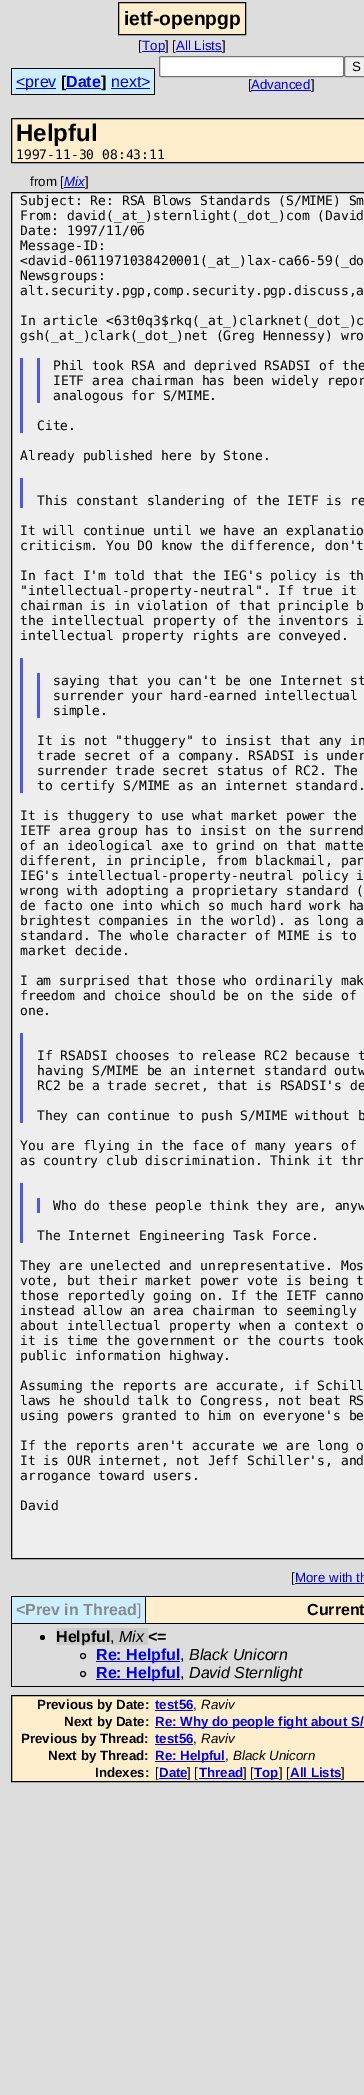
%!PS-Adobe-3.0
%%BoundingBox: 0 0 364 2095
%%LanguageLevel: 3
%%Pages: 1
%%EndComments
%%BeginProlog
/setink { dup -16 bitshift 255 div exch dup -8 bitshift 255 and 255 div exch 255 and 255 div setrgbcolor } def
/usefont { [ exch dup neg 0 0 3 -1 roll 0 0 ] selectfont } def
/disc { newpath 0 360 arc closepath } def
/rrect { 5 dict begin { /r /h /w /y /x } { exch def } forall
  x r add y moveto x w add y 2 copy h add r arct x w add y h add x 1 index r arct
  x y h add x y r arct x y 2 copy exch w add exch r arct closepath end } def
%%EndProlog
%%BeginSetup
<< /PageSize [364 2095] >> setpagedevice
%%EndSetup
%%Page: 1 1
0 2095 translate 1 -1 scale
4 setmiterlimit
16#DDDDDD setink
0 0 364 2095 rectfill
16#FFEECC setink
118.5 2.5 moveto 245.5 2.5 lineto 245.5 34.5 lineto 118.5 34.5 lineto closepath gsave fill grestore
16#000000 setink
stroke
/LiberationSans-Bold 19.25 usefont
124 25 moveto (ietf-openpgp) show
/LiberationSans-Regular 13.3 usefont
138 50 moveto ([) show
16#0000EE setink
142 51 23 1 rectfill
142 50 moveto (Top) show
16#000000 setink
165 50 moveto (] [) show
16#0000EE setink
176 50 moveto (All Lists) show
16#000000 setink
222 50 moveto (]) show
[
    [176 51 46 1 16#0000EE]
    [12 69 44 25 16#CCEEFF]
    [16 88 40 1 16#0000EE]
    [56 68 10 27 16#CCEEFF]
] { aload pop setink rectfill } forall
/LiberationSans-Regular 16 usefont
16#0000EE setink
16 87 moveto (<prev) show
[
    [11 68 45 1 16#000000]
    [11 94 45 1 16#000000]
    [11 68 1 27 16#000000]
    [56 94 45 1 16#000000]
    [66 69 35 25 16#CCEEFF]
] { aload pop setink rectfill } forall
/LiberationSans-Bold 16 usefont
16#000000 setink
61 87 moveto ([) show
16#0000EE setink
66 88 35 1 rectfill
66 87 moveto (Date) show
[
    [56 68 45 1 16#000000]
    [101 68 10 27 16#CCEEFF]
    [101 68 54 1 16#000000]
] { aload pop setink rectfill } forall
101 87 moveto (]) show
101 94 10 1 rectfill
16#CCEEFF setink
111 69 43 25 rectfill
/LiberationSans-Regular 16 usefont
16#0000EE setink
111 87 moveto (next>) show
[
    [154 68 1 27 16#000000]
    [111 94 44 1 16#000000]
    [111 88 39 1 16#0000EE]
] { aload pop setink rectfill } forall
16#FFFFFF setink
159.5 56.5 184 20 1.5 rrect gsave fill grestore
16#767676 setink
stroke
16#EFEFEF setink
344.5 56.5 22 20 1.5 rrect gsave fill grestore
16#767676 setink
stroke
/LiberationSans-Regular 13.3 usefont
16#000000 setink
352 71 moveto (S) show
248 89 moveto ([) show
16#0000EE setink
251 90 60 1 rectfill
251 89 moveto (Advanced) show
16#000000 setink
311 89 moveto (]) show
16#FFEECC setink
11.5 118.5 moveto 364.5 118.5 lineto 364.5 162.5 lineto 11.5 162.5 lineto closepath gsave fill grestore
16#000000 setink
stroke
/LiberationSans-Bold 24 usefont
16 141 moveto (Helpful) show
/DejaVuSansMono-Regular 13 usefont
16 159 moveto (1997-11-30 08:43:11) show
/LiberationSans-Regular 13.3 usefont
30 186 moveto (from [) show
16#0000EE setink
64 187 21 1 rectfill
/LiberationSans-Italic 13.3 usefont
64 186 moveto (Mix) show
/LiberationSans-Regular 13.3 usefont
16#000000 setink
85 186 moveto (]) show
16#EEEEEE setink
11.5 192.5 moveto 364.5 192.5 lineto 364.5 1558.5 lineto 11.5 1558.5 lineto closepath gsave fill grestore
16#000000 setink
stroke
/DejaVuSansMono-Regular 13 usefont
[
    [(Subject: Re: RSA Blows Standards \(S/MIME\) Sm) 20 205]
    [(From: david\(_at_\)sternlight\(_dot_\)com \(David) 20 220]
    [(Date: 1997/11/06) 20 235]
    [(Message-ID:) 20 250]
    [(<david-0611971038420001\(_at_\)lax-ca66-59\(_do) 20 265]
    [(Newsgroups:) 20 280]
    [(alt.security.pgp,comp.security.pgp.discuss,a) 20 295]
    [(In article <63t0q3$rkq\(_at_\)clarknet\(_dot_\)c) 20 325]
    [(gsh\(_at_\)clark\(_dot_\)net \(Greg Hennessy\) wro) 20 340]
] { aload pop moveto show } forall
16#5555EE setink
20 358 3 75 rectfill
37 358 3 45 rectfill
16#000000 setink
[
    [(Phil took RSA and deprived RSADSI of the) 53 370]
    [(IETF area chairman has been widely repor) 53 385]
    [(analogous for S/MIME.) 53 400]
    [(Cite.) 37 430]
    [(Already published here by Stone.) 20 460]
] { aload pop moveto show } forall
16#5555EE setink
20 478 3 30 rectfill
16#000000 setink
[
    [(This constant slandering of the IETF is re) 37 505]
    [(It will continue until we have an explanatio) 20 535]
    [(criticism. You DO know the difference, don't) 20 550]
    [(In fact I'm told that the IEG's policy is th) 20 580]
    [("intellectual-property-neutral". If true it) 20 595]
    [(chairman is in violation of that principle b) 20 610]
    [(the intellectual property of the inventors i) 20 625]
    [(intellectual property rights are conveyed.) 20 640]
] { aload pop moveto show } forall
16#5555EE setink
20 658 3 135 rectfill
37 673 3 45 rectfill
16#000000 setink
[
    [(saying that you can't be one Internet st) 53 685]
    [(surrender your hard-earned intellectual) 53 700]
    [(simple.) 53 715]
    [(It is not "thuggery" to insist that any in) 37 745]
    [(trade secret of a company. RSADSI is under) 37 760]
    [(surrender trade secret status of RC2. The) 37 775]
    [(to certify S/MIME as an internet standard.) 37 790]
    [(It is thuggery to use what market power the) 20 820]
    [(IETF area group has to insist on the surrend) 20 835]
    [(of an ideological axe to grind on that matte) 20 850]
    [(different, in principle, from blackmail, par) 20 865]
    [(IEG's intellectual-property-neutral policy i) 20 880]
    [(wrong with adopting a proprietary standard \() 20 895]
    [(de facto one into which so much hard work ha) 20 910]
    [(brightest companies in the world\). as long a) 20 925]
    [(standard. The whole character of MIME is to) 20 940]
    [(market decide.) 20 955]
    [(I am surprised that those who ordinarily mak) 20 985]
    [(freedom and choice should be on the side of) 20 1000]
    [(one.) 20 1015]
] { aload pop moveto show } forall
16#5555EE setink
20 1033 3 90 rectfill
16#000000 setink
[
    [(If RSADSI chooses to release RC2 because t) 37 1060]
    [(having S/MIME be an internet standard outw) 37 1075]
    [(RC2 be a trade secret, that is RSADSI's de) 37 1090]
    [(They can continue to push S/MIME without b) 37 1120]
    [(You are flying in the face of many years of) 20 1150]
    [(as country club discrimination. Think it thr) 20 1165]
] { aload pop moveto show } forall
16#5555EE setink
20 1183 3 60 rectfill
37 1198 3 15 rectfill
16#000000 setink
[
    [(Who do these people think they are, anyw) 53 1210]
    [(The Internet Engineering Task Force.) 37 1240]
    [(They are unelected and unrepresentative. Mos) 20 1270]
    [(vote, but their market power vote is being t) 20 1285]
    [(those reportedly going on. If the IETF canno) 20 1300]
    [(instead allow an area chairman to seemingly) 20 1315]
    [(about intellectual property when a context o) 20 1330]
    [(it is time the government or the courts took) 20 1345]
    [(public information highway.) 20 1360]
    [(Assuming the reports are accurate, if Schill) 20 1390]
    [(laws he should talk to Congress, not beat RS) 20 1405]
    [(using powers granted to him on everyone's be) 20 1420]
    [(If the reports aren't accurate we are long o) 20 1450]
    [(It is OUR internet, not Jeff Schiller's, and) 20 1465]
    [(arrogance toward users.) 20 1480]
    [(David) 20 1510]
] { aload pop moveto show } forall
/LiberationSans-Regular 13.3 usefont
291 1582 moveto ([) show
16#0000EE setink
295 1583 69 1 rectfill
295 1582 moveto (More with th) show
16#000000 setink
11 1596 353 91 rectfill
16#CCEEFF setink
12 1597 133 26 rectfill
/LiberationSans-Bold 16 usefont
16#888888 setink
16 1615 moveto (<Prev in Thread) show
/LiberationSans-Regular 16 usefont
137 1615 moveto (]) show
16#FFEECC setink
146 1597 218 26 rectfill
/LiberationSans-Bold 16 usefont
16#000000 setink
307 1615 moveto (Current) show
16#DDDDDD setink
12 1624 352 62 rectfill
16#000000 setink
42.5 1637.5 2.5 disc fill
16#CCCCCC setink
56 1628 92 17 rectfill
16#000000 setink
56 1642 moveto (Helpful) show
/LiberationSans-Italic 16 usefont
119 1642 moveto (Mix) show
/LiberationSans-Bold 16 usefont
148 1642 moveto (<=) show
/LiberationSans-Regular 16 usefont
110 1642 moveto (,) show
83 1656 2.5 disc stroke
16#0000EE setink
96 1661 84 1 rectfill
/LiberationSans-Bold 16 usefont
96 1660 moveto (Re: Helpful) show
/LiberationSans-Italic 16 usefont
16#000000 setink
189 1660 moveto (Black Unicorn) show
/LiberationSans-Regular 16 usefont
180 1660 moveto (,) show
83 1674 2.5 disc stroke
16#0000EE setink
96 1679 84 1 rectfill
/LiberationSans-Bold 16 usefont
96 1678 moveto (Re: Helpful) show
/LiberationSans-Italic 16 usefont
16#000000 setink
189 1678 moveto (David Sternlight) show
/LiberationSans-Regular 16 usefont
180 1678 moveto (,) show
16#FFEECC setink
11.5 1695.5 moveto 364.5 1695.5 lineto 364.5 1781.5 lineto 11.5 1781.5 lineto closepath gsave fill grestore
16#000000 setink
stroke
/LiberationSans-Bold 13.3 usefont
37 1709 moveto (Previous by Date:) show
16#0000EE setink
155 1709 moveto (test56) show
155 1710 38 1 rectfill
/LiberationSans-Regular 13.3 usefont
16#000000 setink
193 1709 moveto (,) show
/LiberationSans-Italic 13.3 usefont
201 1709 moveto (Raviv) show
/LiberationSans-Bold 13.3 usefont
64 1726 moveto (Next by Date:) show
16#0000EE setink
155 1727 209 1 rectfill
155 1726 moveto (Re: Why do people fight about S/) show
16#000000 setink
21 1743 moveto (Previous by Thread:) show
16#0000EE setink
155 1743 moveto (test56) show
155 1744 38 1 rectfill
/LiberationSans-Regular 13.3 usefont
16#000000 setink
193 1743 moveto (,) show
/LiberationSans-Italic 13.3 usefont
201 1743 moveto (Raviv) show
/LiberationSans-Bold 13.3 usefont
48 1760 moveto (Next by Thread:) show
16#0000EE setink
155 1761 70 1 rectfill
155 1760 moveto (Re: Helpful) show
/LiberationSans-Regular 13.3 usefont
16#000000 setink
225 1760 moveto (,) show
/LiberationSans-Italic 13.3 usefont
233 1760 moveto (Black Unicorn) show
/LiberationSans-Bold 13.3 usefont
95 1777 moveto (Indexes:) show
/LiberationSans-Regular 13.3 usefont
155 1777 moveto ([) show
/LiberationSans-Bold 13.3 usefont
16#0000EE setink
159 1777 moveto (Date) show
159 1778 28 1 rectfill
/LiberationSans-Regular 13.3 usefont
16#000000 setink
187 1777 moveto (] [) show
/LiberationSans-Bold 13.3 usefont
16#0000EE setink
199 1777 moveto (Thread) show
199 1778 44 1 rectfill
/LiberationSans-Regular 13.3 usefont
16#000000 setink
243 1777 moveto (] [) show
16#0000EE setink
254 1778 25 1 rectfill
/LiberationSans-Bold 13.3 usefont
254 1777 moveto (Top) show
/LiberationSans-Regular 13.3 usefont
16#000000 setink
279 1777 moveto (] [) show
/LiberationSans-Bold 13.3 usefont
16#0000EE setink
290 1777 moveto (All Lists) show
290 1778 51 1 rectfill
/LiberationSans-Regular 13.3 usefont
16#000000 setink
341 1777 moveto (]) show
showpage
%%EOF
